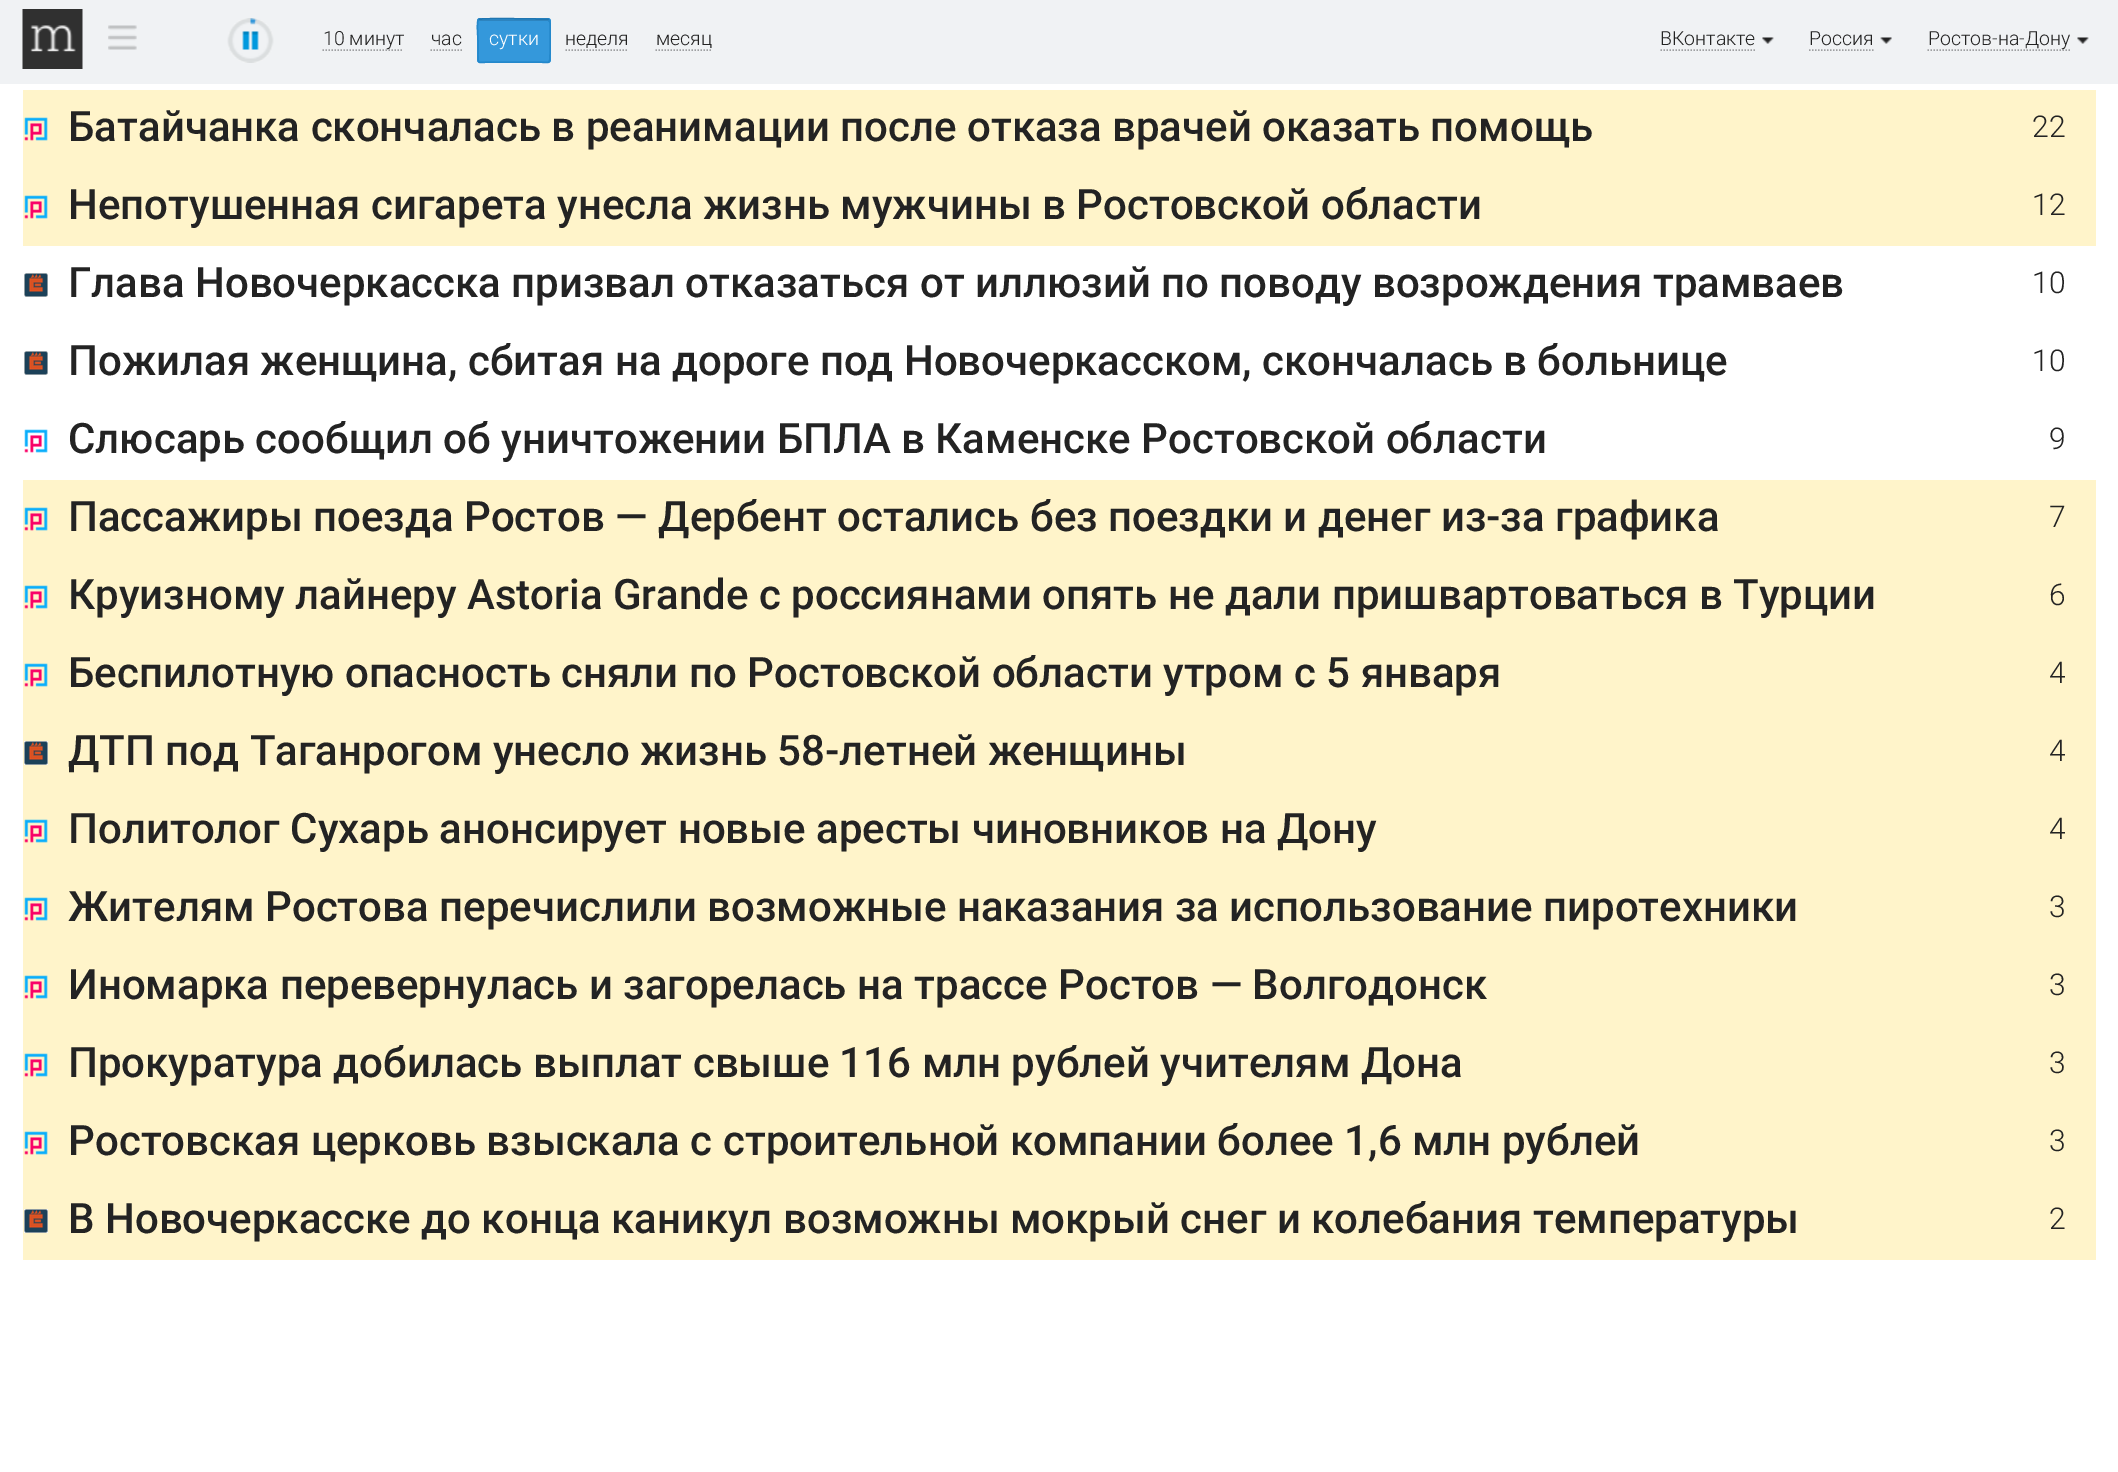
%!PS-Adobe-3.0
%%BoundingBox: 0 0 2118 1472
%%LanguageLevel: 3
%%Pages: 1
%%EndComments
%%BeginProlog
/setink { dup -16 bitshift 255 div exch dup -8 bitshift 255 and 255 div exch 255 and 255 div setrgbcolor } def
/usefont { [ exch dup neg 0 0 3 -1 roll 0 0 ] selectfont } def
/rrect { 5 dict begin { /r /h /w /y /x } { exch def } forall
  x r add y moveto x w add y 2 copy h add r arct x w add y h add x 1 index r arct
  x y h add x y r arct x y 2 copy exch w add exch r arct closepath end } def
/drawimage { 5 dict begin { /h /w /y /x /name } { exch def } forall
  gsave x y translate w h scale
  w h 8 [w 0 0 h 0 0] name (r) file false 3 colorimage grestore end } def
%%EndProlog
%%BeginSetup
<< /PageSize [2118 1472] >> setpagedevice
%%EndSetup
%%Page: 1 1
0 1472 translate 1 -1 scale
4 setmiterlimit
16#FFFFFF setink
0 0 2118 1472 rectfill
16#F0F2F4 setink
0 0 2118 84 rectfill
(img1.raw) 22 9 61 60 drawimage
(img2.raw) 108 25 29 25 drawimage
(img3.raw) 227 18 47 45 drawimage
(img4.raw) 250 18 7 7 drawimage
16#9FA0A2 setink
1.5 setlinewidth
[1.5 1.5] 0 setdash
322.5 50 moveto 403.5 50 lineto stroke
/Roboto-Light 19.5 usefont
16#232323 setink
323 45 moveto (10 минут) show
16#9FA0A2 setink
430.5 50 moveto 462 50 lineto stroke
16#232323 setink
431 45 moveto (час) show
16#3498DB setink
477 18 74 45 3 rrect fill
16#2D84BF setink
480 21 moveto 548 21 lineto 549 22 lineto 549 21 548 20 548 20 curveto 480 20 lineto 480 20 479 21 479 21 curveto closepath fill
16#1F76B1 setink
[] 0 setdash
478.5 19.5 moveto 480.5 18 530 19 536 19 curveto 547.5 19 lineto 549 19.5 lineto stroke
16#2488CB setink
549 19.5 moveto 551 21 550 37.5 550 40.5 curveto 550 53.5 lineto 550 65.5 550 62 536 62 curveto 491 62 lineto 477.5 62 478 65.5 478 53.5 curveto 478 40.5 lineto 478 37.5 476.5 21 478.5 19.5 curveto stroke
16#FFFFFF setink
489 45 moveto (сутки) show
16#9FA0A2 setink
[1.5 1.5] 0 setdash
565.5 50 moveto 628.5 50 lineto stroke
16#232323 setink
565 45 moveto (неделя) show
16#9FA0A2 setink
655.5 50 moveto 712.5 50 lineto stroke
16#232323 setink
656 45 moveto (месяц) show
16#9FA0A2 setink
1660.5 50 moveto 1755 50 lineto stroke
16#232323 setink
1660 45 moveto (ВКонтакте) show
(img5.raw) 1762 37 12 7 drawimage
16#9FA0A2 setink
1809 50 moveto 1873.5 50 lineto stroke
16#232323 setink
1809 45 moveto (Россия) show
(img6.raw) 1880 37 12 7 drawimage
16#9FA0A2 setink
1927.5 50 moveto 2070 50 lineto stroke
16#232323 setink
1928 45 moveto (Ростов-на-Дону) show
(img7.raw) 2077 37 12 7 drawimage
16#FFF4CA setink
23 90 2073 156 rectfill
(img8.raw) 24 117 24 24 drawimage
/Roboto-Medium 42 usefont
16#232323 setink
68 141 moveto (Батайчанка скончалась в реанимации после отказа врачей оказать помощь) show
/Roboto-Light 30 usefont
2032 137 moveto (22) show
(img8.raw) 24 195 24 24 drawimage
/Roboto-Medium 42 usefont
68 219 moveto (Непотушенная сигарета унесла жизнь мужчины в Ростовской области) show
/Roboto-Light 30 usefont
2032 215 moveto (12) show
(img9.raw) 24 273 24 24 drawimage
/Roboto-Medium 42 usefont
68 297 moveto (Глава Новочеркасска призвал отказаться от иллюзий по поводу возрождения трамваев) show
/Roboto-Light 30 usefont
2032 293 moveto (10) show
(img9.raw) 24 351 24 24 drawimage
/Roboto-Medium 42 usefont
68 375 moveto (Пожилая женщина, сбитая на дороге под Новочеркасском, скончалась в больнице) show
/Roboto-Light 30 usefont
2032 371 moveto (10) show
(img10.raw) 24 429 24 24 drawimage
/Roboto-Medium 42 usefont
68 453 moveto (Слюсарь сообщил об уничтожении БПЛА в Каменске Ростовской области) show
/Roboto-Light 30 usefont
2049 449 moveto (9) show
16#FFF4CA setink
23 480 2073 780 rectfill
(img8.raw) 24 507 24 24 drawimage
/Roboto-Medium 42 usefont
16#232323 setink
68 531 moveto (Пассажиры поезда Ростов — Дербент остались без поездки и денег из-за графика) show
/Roboto-Light 30 usefont
2049 527 moveto (7) show
(img8.raw) 24 585 24 24 drawimage
/Roboto-Medium 42 usefont
68 609 moveto (Круизному лайнеру Astoria Grande с россиянами опять не дали пришвартоваться в Турции) show
/Roboto-Light 30 usefont
2049 605 moveto (6) show
(img8.raw) 24 663 24 24 drawimage
/Roboto-Medium 42 usefont
68 687 moveto (Беспилотную опасность сняли по Ростовской области утром с 5 января) show
/Roboto-Light 30 usefont
2049 683 moveto (4) show
(img9.raw) 24 741 24 24 drawimage
/Roboto-Medium 42 usefont
68 765 moveto (ДТП под Таганрогом унесло жизнь 58-летней женщины) show
/Roboto-Light 30 usefont
2049 761 moveto (4) show
(img8.raw) 24 819 24 24 drawimage
/Roboto-Medium 42 usefont
68 843 moveto (Политолог Сухарь анонсирует новые аресты чиновников на Дону) show
/Roboto-Light 30 usefont
2049 839 moveto (4) show
(img8.raw) 24 897 24 24 drawimage
/Roboto-Medium 42 usefont
68 921 moveto (Жителям Ростова перечислили возможные наказания за использование пиротехники) show
/Roboto-Light 30 usefont
2049 917 moveto (3) show
(img8.raw) 24 975 24 24 drawimage
/Roboto-Medium 42 usefont
68 999 moveto (Иномарка перевернулась и загорелась на трассе Ростов — Волгодонск) show
/Roboto-Light 30 usefont
2049 995 moveto (3) show
(img8.raw) 24 1053 24 24 drawimage
/Roboto-Medium 42 usefont
68 1077 moveto (Прокуратура добилась выплат свыше 116 млн рублей учителям Дона) show
/Roboto-Light 30 usefont
2049 1073 moveto (3) show
(img8.raw) 24 1131 24 24 drawimage
/Roboto-Medium 42 usefont
68 1155 moveto (Ростовская церковь взыскала с строительной компании более 1,6 млн рублей) show
/Roboto-Light 30 usefont
2049 1151 moveto (3) show
(img9.raw) 24 1209 24 24 drawimage
/Roboto-Medium 42 usefont
68 1233 moveto (В Новочеркасске до конца каникул возможны мокрый снег и колебания температуры) show
/Roboto-Light 30 usefont
2049 1229 moveto (2) show
showpage
%%EOF
